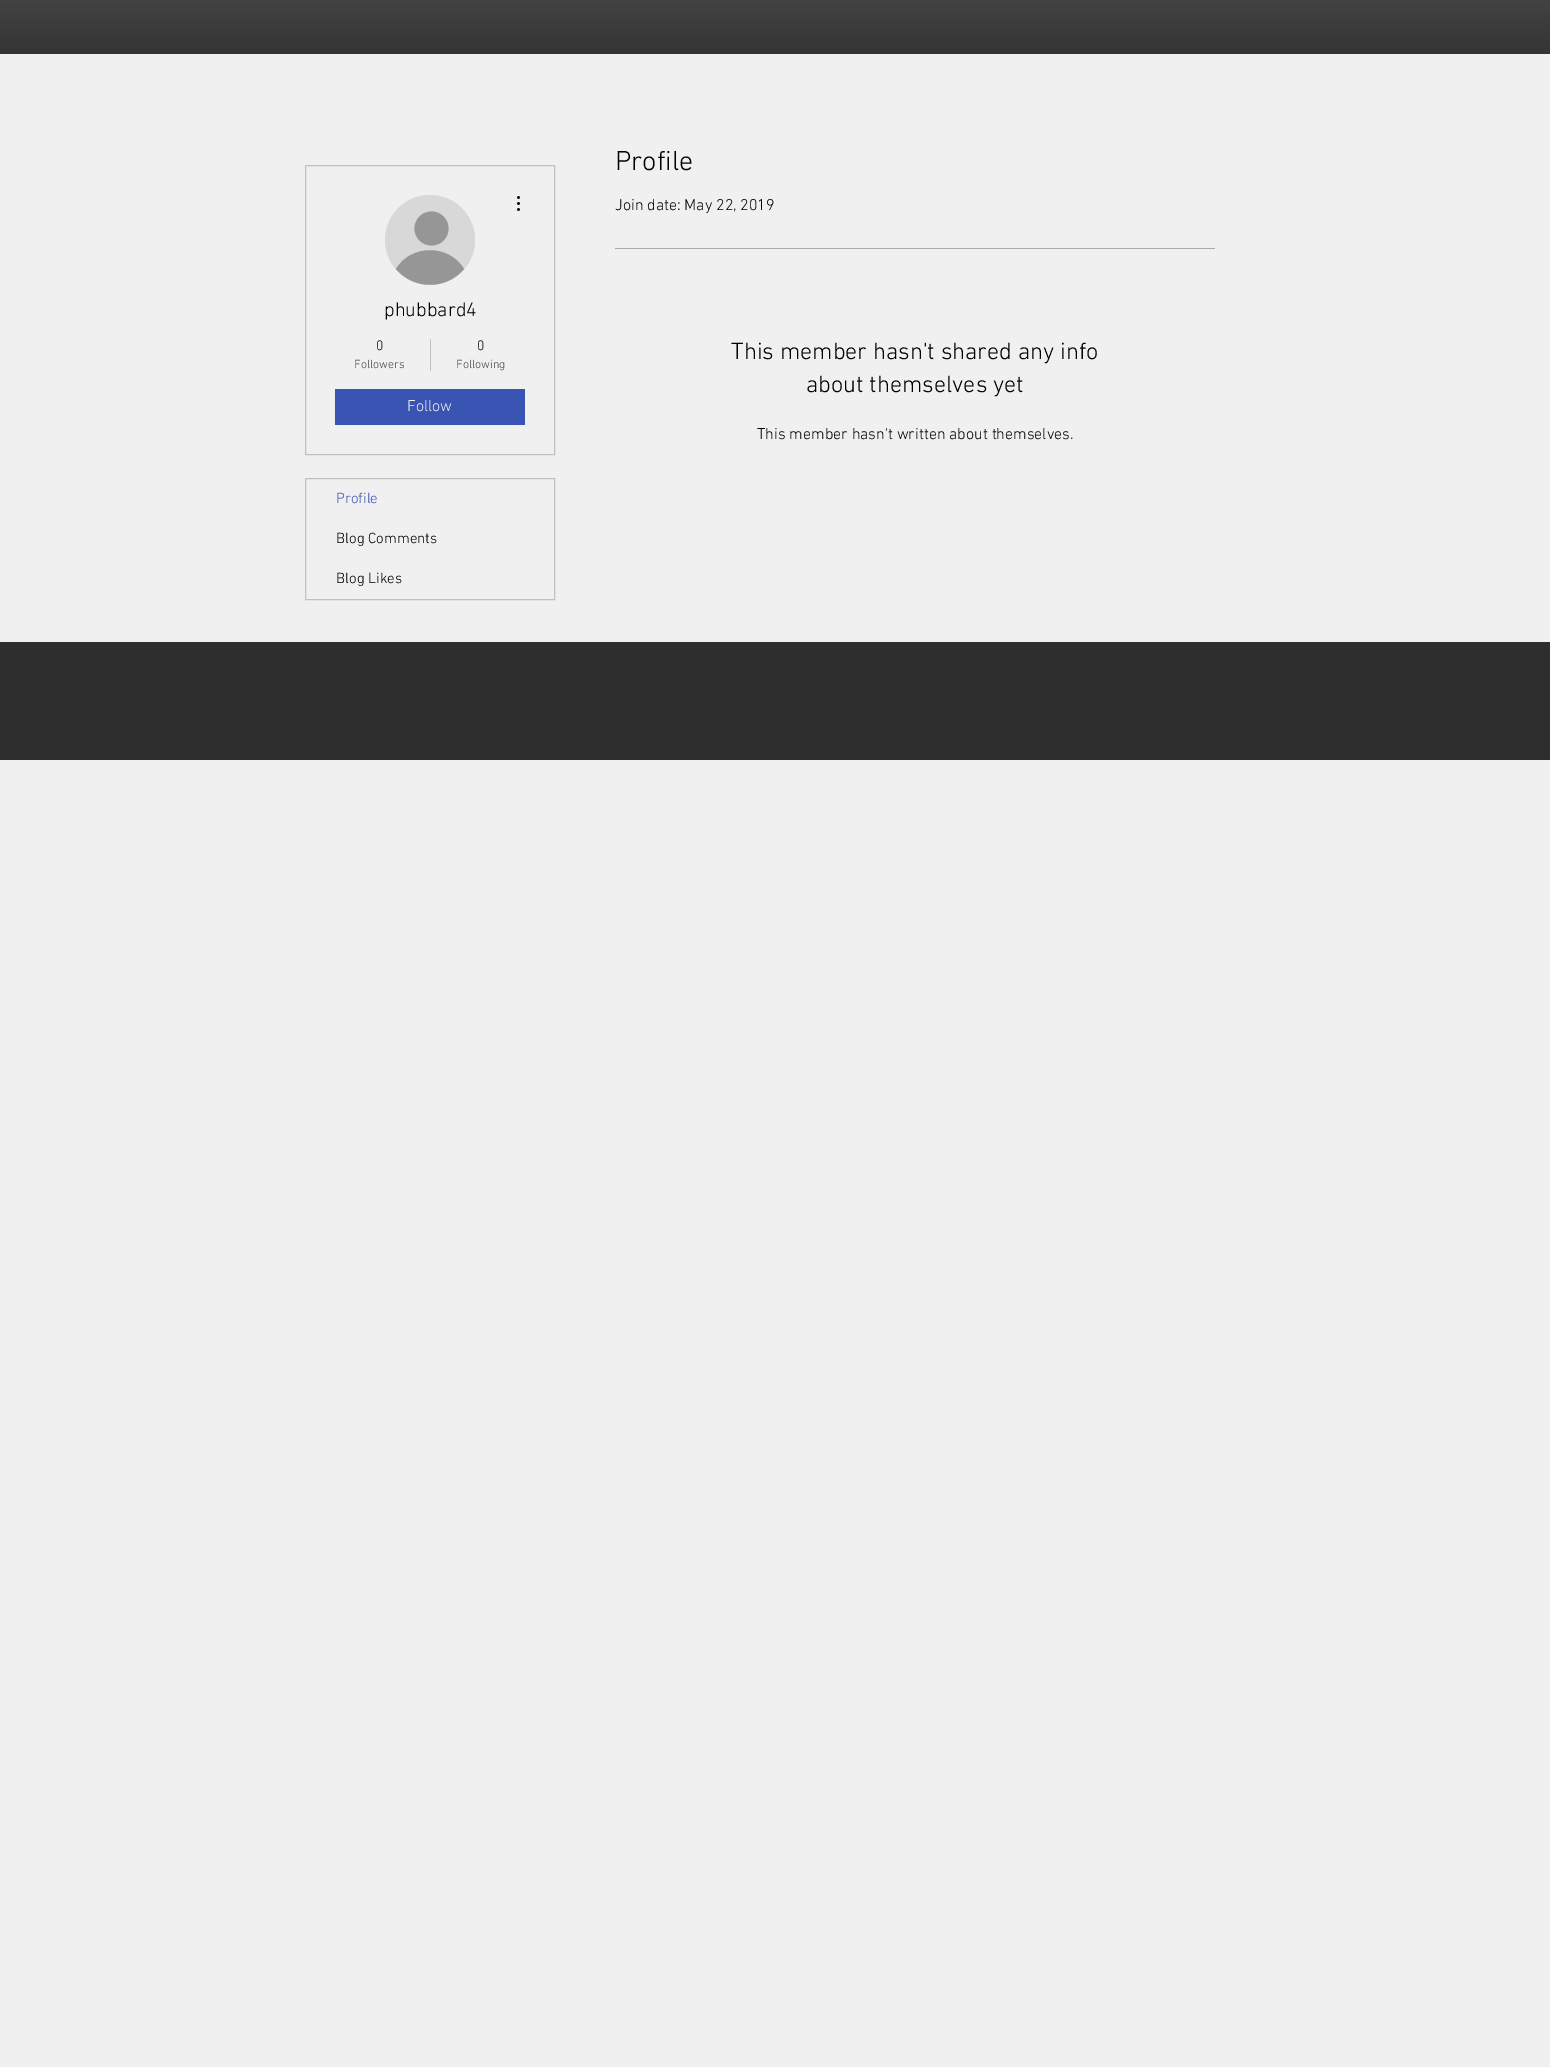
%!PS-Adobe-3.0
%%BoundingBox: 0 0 1550 2067
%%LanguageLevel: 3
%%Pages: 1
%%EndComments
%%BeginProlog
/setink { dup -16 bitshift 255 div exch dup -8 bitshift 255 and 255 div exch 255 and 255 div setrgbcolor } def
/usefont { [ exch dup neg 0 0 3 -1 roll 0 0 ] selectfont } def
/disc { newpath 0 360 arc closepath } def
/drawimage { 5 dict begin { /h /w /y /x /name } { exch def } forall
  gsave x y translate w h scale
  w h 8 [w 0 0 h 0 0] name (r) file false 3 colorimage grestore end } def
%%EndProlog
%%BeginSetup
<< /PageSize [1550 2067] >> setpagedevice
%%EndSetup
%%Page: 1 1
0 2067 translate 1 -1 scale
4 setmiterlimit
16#F0F0F0 setink
0 0 1550 2067 rectfill
16#000000 setink
0 0 1550 54 rectfill
(img1.raw) 0 0 1550 54 drawimage
16#C0C0C0 setink
305.5 165.5 249 289 rectstroke
16#D8D8D8 setink
430 240 45 disc fill
16#969696 setink
431.5 228.5 17 disc fill
464 269 moveto 446 290 414 290 396 269 curveto 411 244 449 244 464 269 curveto closepath fill
(img2.raw) 517 196 3 15 drawimage
/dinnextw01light-Light 20 usefont
16#000000 setink
384 316 moveto (phubbard4) show
/dinnextw01light-Light 14 usefont
376 350 moveto (0) show
/dinnextw01light-Light 12 usefont
16#484848 setink
354 368 moveto (Followers) show
16#C0C0C0 setink
430 339 1 32 rectfill
/dinnextw01light-Light 14 usefont
16#000000 setink
477 350 moveto (0) show
/dinnextw01light-Light 12 usefont
16#484848 setink
456 368 moveto (Following) show
16#3A54B4 setink
335 389 190 36 rectfill
/dinnextw01light-Light 16 usefont
16#F0F0F0 setink
407 411 moveto (Follow) show
16#C0C0C0 setink
305.5 478.5 249 121 rectstroke
/dinnextw01light-Light 15 usefont
16#3A54B4 setink
336 503 moveto (Profile) show
16#000000 setink
336 543 moveto (Blog Comments) show
336 583 moveto (Blog Likes) show
/dinnextw01light-Light 28 usefont
615 170 moveto (Profile) show
/dinnextw01light-Light 16 usefont
615 210 moveto (Join date: May 22, 2019) show
16#A8A8A8 setink
615 248 600 1 rectfill
/dinnextw01light-Light 24 usefont
16#000000 setink
731 359 moveto (This member hasn't shared any info) show
806 392 moveto (about themselves yet) show
/dinnextw01light-Light 16 usefont
757 439 moveto (This member hasn't written about themselves.) show
16#2F2E2E setink
0 642 1550 118 rectfill
showpage
%%EOF
